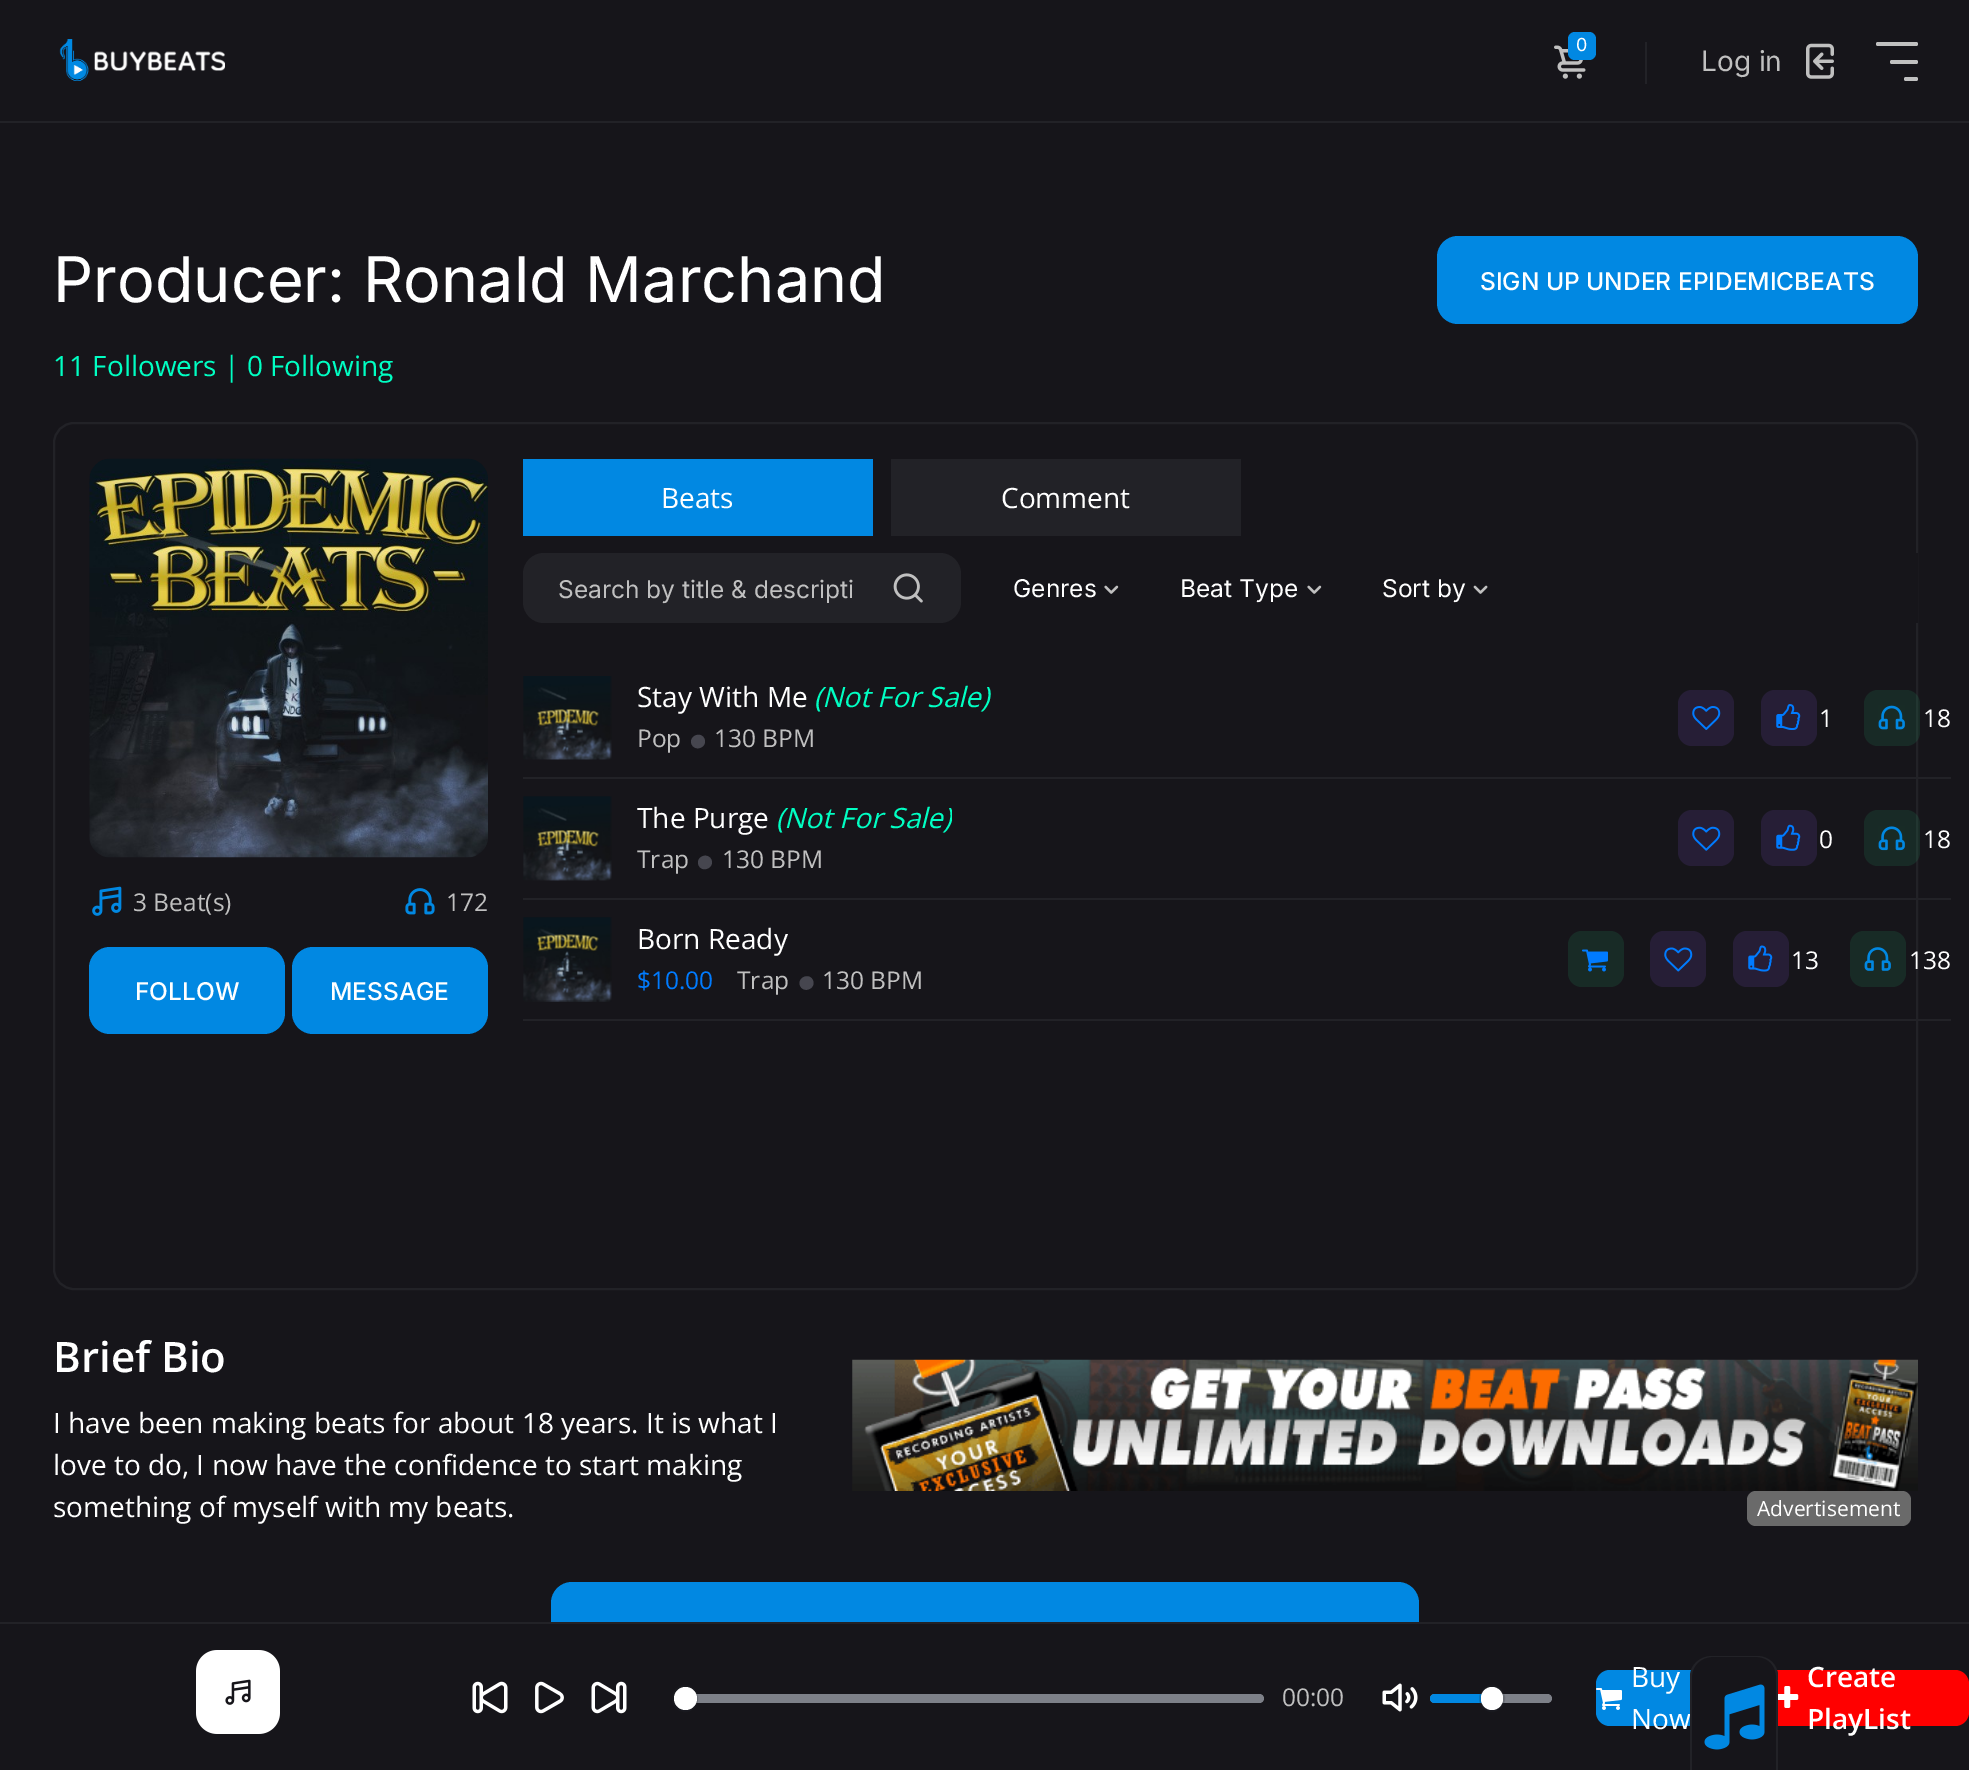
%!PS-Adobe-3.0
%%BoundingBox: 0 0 1969 1770
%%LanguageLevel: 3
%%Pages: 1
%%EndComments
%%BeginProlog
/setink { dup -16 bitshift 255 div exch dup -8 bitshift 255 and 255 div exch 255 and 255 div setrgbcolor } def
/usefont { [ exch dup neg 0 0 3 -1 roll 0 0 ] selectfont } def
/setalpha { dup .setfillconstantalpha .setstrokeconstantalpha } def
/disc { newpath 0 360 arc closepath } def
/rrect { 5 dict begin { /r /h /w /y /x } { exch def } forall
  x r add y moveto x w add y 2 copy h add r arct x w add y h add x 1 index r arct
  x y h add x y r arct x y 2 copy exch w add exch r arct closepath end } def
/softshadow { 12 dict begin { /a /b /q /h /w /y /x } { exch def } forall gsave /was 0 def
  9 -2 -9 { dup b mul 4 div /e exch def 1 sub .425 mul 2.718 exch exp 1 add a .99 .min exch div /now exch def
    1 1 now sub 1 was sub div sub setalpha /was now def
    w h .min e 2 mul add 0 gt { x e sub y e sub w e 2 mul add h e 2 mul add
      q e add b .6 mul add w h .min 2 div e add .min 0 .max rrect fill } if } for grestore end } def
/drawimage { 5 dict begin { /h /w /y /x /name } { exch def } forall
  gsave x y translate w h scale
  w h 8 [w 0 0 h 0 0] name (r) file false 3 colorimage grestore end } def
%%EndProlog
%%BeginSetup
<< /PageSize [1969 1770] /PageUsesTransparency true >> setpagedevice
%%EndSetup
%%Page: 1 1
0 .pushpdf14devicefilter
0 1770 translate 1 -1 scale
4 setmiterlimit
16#16151A setink
0 0 1969 1770 rectfill
16#222227 setink
0 121 1969 2 rectfill
(img1.raw) 59 39 166 42 drawimage
(img2.raw) 1554 45 32 34 drawimage
16#0188E2 setink
1568 32 28 28 7 rrect fill
/Inter-Regular 18 usefont
16#FFFFFF setink
1576 51 moveto (0) show
16#222227 setink
1645 42 2 42 rectfill
/Inter-Regular 28 usefont
16#C0C0C0 setink
1701 71 moveto (Log in) show
(img3.raw) 1806 43 28 36 drawimage
1876 42 42 4 2 rrect fill
1890 60 28 4 2 rrect fill
1904 77 14 4 2 rrect fill
/Inter-Regular 63 usefont
16#FFFFFF setink
53 302 moveto (Producer: Ronald Marchand) show
16#0188E2 setink
1437 236 481 88 21 rrect fill
/Inter-Medium 24.5 usefont
16#FFFFFF setink
1480 290 moveto (SIGN UP UNDER EPIDEMICBEATS) show
/OpenSans-Regular 28 usefont
16#00FFC3 setink
53 376 moveto (11 Followers | 0 Following) show
16#222227 setink
2 setlinewidth
54 423 1863 866 20 rrect stroke
(img4.raw) 89 458 399 400 drawimage
(img5.raw) 92 886 30 30 drawimage
/OpenSans-Regular 24.5 usefont
16#C0C0C0 setink
133 911 moveto (3 Beat\(s\)) show
(img6.raw) 405 888 30 27 drawimage
446 911 moveto (172) show
16#0188E2 setink
89 947 196 87 21 rrect fill
/Inter-Medium 24.5 usefont
16#FFFFFF setink
135 1000 moveto (FOLLOW) show
16#0188E2 setink
292 947 196 87 21 rrect fill
16#FFFFFF setink
330 1000 moveto (MESSAGE) show
16#0188E2 setink
523 459 350 77 rectfill
/OpenSans-Regular 28 usefont
16#FFFFFF setink
661 508 moveto (Beats) show
16#222227 setink
891 459 350 77 rectfill
16#FFFFFF setink
1001 508 moveto (Comment) show
16#16151A setink
1916 553 2 70 rectfill
16#222227 setink
523 553 438 70 21 rrect fill
/Inter-Regular 24.5 usefont
16#C0C0C0 setink
558 598 moveto (Search by title & descripti) show
(img7.raw) 893 573 30 30 drawimage
16#FFFFFF setink
1013 597 moveto (Genres) show
(img8.raw) 1104 585 15 9 drawimage
1180 597 moveto (Beat Type) show
(img8.raw) 1307 585 15 9 drawimage
1382 597 moveto (Sort by) show
(img9.raw) 1473 585 15 9 drawimage
16#222227 setink
523 777 1428 2 rectfill
(img10.raw) 523 676 89 84 drawimage
/OpenSans-Regular 28 usefont
16#FFFFFF setink
637 707 moveto (Stay With Me) show
gsave
637 676 354 42 rectclip
/OpenSans-Italic 28 usefont
16#00FFC3 setink
814 707 moveto (\(Not For Sale\)) show
grestore
/OpenSans-Regular 24.5 usefont
16#C0C0C0 setink
637 747 moveto (Pop) show
16#46464F setink
704 738 moveto 708.5 746 696.5 752.5 692 745 curveto 687.5 737.5 699.5 730.5 704 738 curveto closepath fill
16#C0C0C0 setink
714 747 moveto (130 BPM) show
16#261E36 setink
1678 690 56 56 14 rrect fill
(img11.raw) 1692 706 29 24 drawimage
1761 690 56 56 14 rrect fill
(img12.raw) 1776 704 25 26 drawimage
16#FFFFFF setink
1819 727 moveto (1) show
0.15 setalpha
16#25A56A setink
1864 690 56 56 14 rrect fill
1 setalpha
(img13.raw) 1878 705 27 25 drawimage
16#FFFFFF setink
1923 727 moveto (18) show
16#222227 setink
523 898 1428 2 rectfill
(img14.raw) 523 796 89 85 drawimage
/OpenSans-Regular 28 usefont
16#FFFFFF setink
637 828 moveto (The Purge) show
gsave
637 796 315 42 rectclip
/OpenSans-Italic 28 usefont
16#00FFC3 setink
776 828 moveto (\(Not For Sale\)) show
grestore
gsave
637 838 315 42 rectclip
/OpenSans-Regular 24.5 usefont
16#C0C0C0 setink
637 868 moveto (Trap) show
grestore
16#46464F setink
711 859 moveto 715.5 866.5 703.5 873.5 699 866 curveto 694.5 858 706.5 851.5 711 859 curveto closepath fill
/OpenSans-Regular 24.5 usefont
16#C0C0C0 setink
722 868 moveto (130 BPM) show
16#261E36 setink
1678 810 56 56 14 rrect fill
(img15.raw) 1692 826 29 25 drawimage
1761 810 56 56 14 rrect fill
(img16.raw) 1776 824 25 27 drawimage
16#FFFFFF setink
1819 848 moveto (0) show
0.15 setalpha
16#25A56A setink
1864 810 56 56 14 rrect fill
1 setalpha
(img17.raw) 1878 826 27 25 drawimage
16#FFFFFF setink
1923 848 moveto (18) show
16#222227 setink
523 1019 1428 2 rectfill
(img18.raw) 523 917 89 85 drawimage
/OpenSans-Regular 28 usefont
16#FFFFFF setink
637 949 moveto (Born Ready) show
/OpenSans-Regular 24.5 usefont
16#007BFF setink
637 989 moveto ($10.00) show
16#C0C0C0 setink
737 989 moveto (Trap) show
16#46464F setink
812.5 979.5 moveto 817 987.5 805 994 800.5 986.5 curveto 796 979 808 972 812.5 979.5 curveto closepath fill
16#C0C0C0 setink
822 989 moveto (130 BPM) show
16#182B26 setink
1568 931 56 56 14 rrect fill
(img19.raw) 1582 949 26 23 drawimage
16#261E36 setink
1650 931 56 56 14 rrect fill
(img20.raw) 1664 947 29 25 drawimage
1733 931 56 56 14 rrect fill
(img21.raw) 1748 945 25 27 drawimage
16#FFFFFF setink
1791 969 moveto (13) show
16#182B26 setink
1850 931 56 56 14 rrect fill
(img22.raw) 1864 947 27 24 drawimage
16#FFFFFF setink
1909 969 moveto (138) show
/OpenSans-SemiBold 42 usefont
53 1372 moveto (Brief Bio) show
/OpenSans-Regular 28 usefont
[
    [(I have been making beats for about 18 years. It is what I) 53 1433]
    [(love to do, I now have the confidence to start making) 53 1475]
    [(something of myself with my beats.) 53 1517]
] { aload pop moveto show } forall
(img23.raw) 852 1359 1066 132 drawimage
16#6A6A6A setink
1747 1491 164 35 9 rrect fill
/OpenSans-Regular 21 usefont
16#FFFFFF setink
1757 1516 moveto (Advertisement) show
16#0188E2 setink
551 1582 868 88 21 rrect fill
1596 1670 137 56 14 rrect fill
16#FF0000 setink
1759 1670 210 56 14 rrect fill
16#16151A setink
1712 1656 moveto 1757 1656 lineto 1768.5 1656 1778 1665.5 1778 1677 curveto 1778 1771 lineto 1691 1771 lineto 1691 1677 lineto 1691 1665.5 1700.5 1656 1712 1656 curveto closepath fill
/OpenSans-Regular 28 usefont
16#FFFFFF setink
1631 1729 moveto (Now) show
16#222227 setink
1712 1656 moveto 1757 1656 lineto 1769 1656 1778 1665 1778 1676 curveto 1778 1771 lineto 1690 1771 lineto 1690 1676 lineto 1690 1665 1700 1656 1712 1656 curveto closepath 1712 1657 moveto 1757 1657 lineto 1768 1657 1776 1666 1776 1676 curveto 1776 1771 lineto 1692 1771 lineto 1692 1676 lineto 1692 1666 1701 1657 1712 1657 curveto closepath eofill
(img24.raw) 1704 1684 61 66 drawimage
16#16151A setink
551 1624 868 46 rectfill
16#222227 setink
0 1622 1969 2 rectfill
(img25.raw) 196 1650 84 84 drawimage
(img26.raw) 472 1681 36 33 drawimage
(img27.raw) 535 1681 29 33 drawimage
(img28.raw) 591 1681 36 33 drawimage
0.6 setalpha
16#C1C8D1 setink
674 1694 590 9 4.5 rrect fill
0.2 setalpha
16#23282F setink
673 1686 24 25 12 rrect stroke
1 setalpha
674 1689 23 23 11.5 1 0.15 softshadow
16#FFFFFF setink
685.5 1698.5 11.5 disc fill
/OpenSans-Regular 24.5 usefont
16#C0C0C0 setink
1282 1706 moveto (00:00) show
(img29.raw) 1382 1683 36 29 drawimage
16#7D8088 setink
1430 1694 122 9 4.5 rrect fill
16#0188E2 setink
1434.5 1694 moveto 1491 1694 lineto 1491 1703 lineto 1434.5 1703 lineto 1432 1703 1430 1701 1430 1698.5 curveto 1430 1696 1432 1694 1434.5 1694 curveto closepath fill
0.2 setalpha
16#23282F setink
1480 1686 24 25 12 rrect stroke
1 setalpha
1481 1689 22 23 11 1 0.15 softshadow
16#FFFFFF setink
1481 1687 22 23 11 rrect fill
/OpenSans-Regular 28 usefont
1631 1687 moveto (Buy) show
(img30.raw) 1596 1688 26 22 drawimage
/OpenSans-SemiBold 28 usefont
1807 1687 moveto (Create) show
(img31.raw) 1778 1686 21 22 drawimage
1807 1729 moveto (PlayList) show
.poppdf14devicefilter showpage
%%EOF
